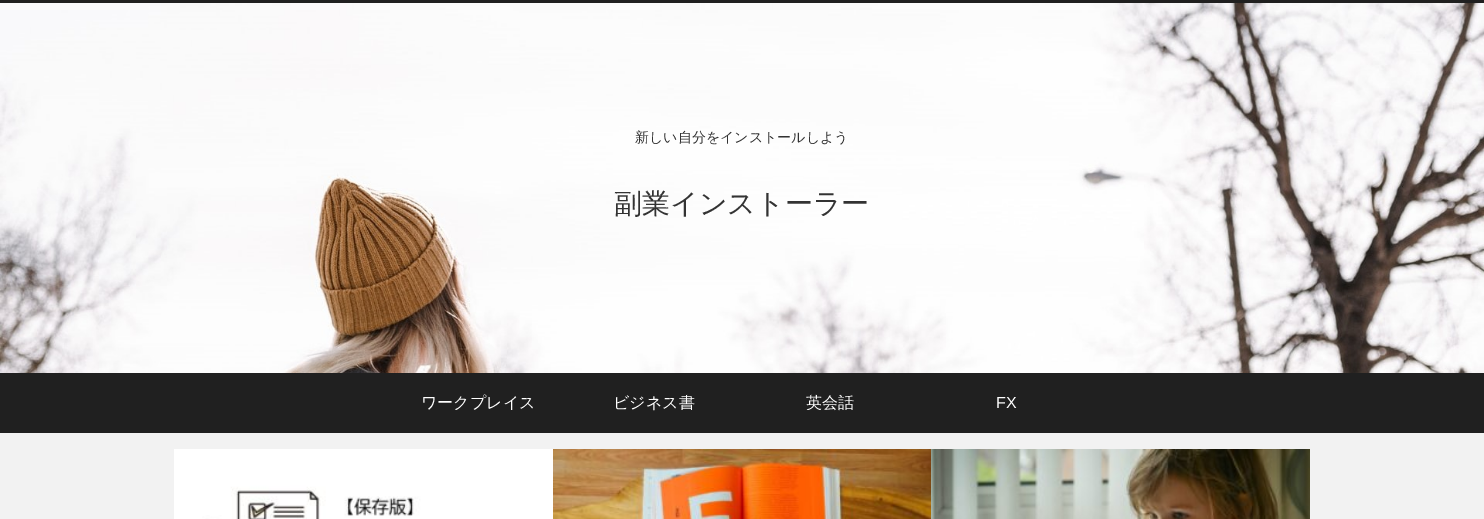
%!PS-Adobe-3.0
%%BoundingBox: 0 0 1484 519
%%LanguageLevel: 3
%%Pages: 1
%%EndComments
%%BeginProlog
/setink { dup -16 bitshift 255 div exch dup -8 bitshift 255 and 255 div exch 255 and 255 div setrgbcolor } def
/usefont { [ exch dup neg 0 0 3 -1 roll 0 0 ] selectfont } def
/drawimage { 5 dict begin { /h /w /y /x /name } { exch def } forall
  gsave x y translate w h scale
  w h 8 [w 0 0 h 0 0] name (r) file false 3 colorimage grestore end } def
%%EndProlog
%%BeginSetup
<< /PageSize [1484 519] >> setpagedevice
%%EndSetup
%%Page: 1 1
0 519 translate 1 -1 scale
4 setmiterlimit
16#F2F2F2 setink
0 0 1484 519 rectfill
16#202020 setink
0 0 1484 3 rectfill
(img1.raw) 0 3 1484 370 drawimage
/WenQuanYiZenHei-Medium 14 usefont
16#333333 setink
635 142 moveto (新しい自分をインストールしよう) show
/WenQuanYiZenHei-Medium 28 usefont
614 213 moveto (副業インストーラー) show
16#202020 setink
0 373 1484 60 rectfill
/WenQuanYiZenHei-Medium 16 usefont
16#FFFFFF setink
[
    [(ワークプレイス) 421 408]
    [(ビジネス書) 613 408]
    [(英会話) 806 408]
] { aload pop moveto show } forall
/LiberationSans-Regular 16 usefont
996 408 moveto (FX) show
(img2.raw) 174 449 379 70 drawimage
(img3.raw) 553 449 378 70 drawimage
(img4.raw) 931 449 379 70 drawimage
showpage
%%EOF
